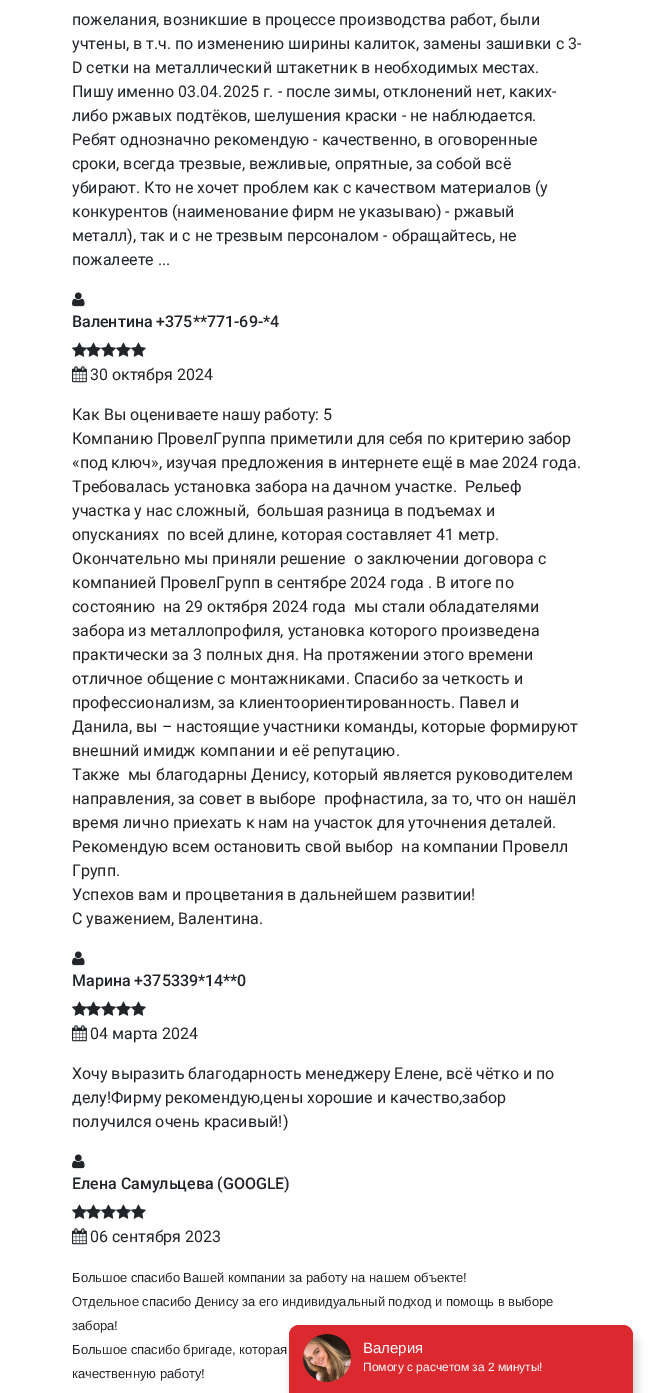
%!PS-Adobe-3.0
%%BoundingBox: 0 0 653 1393
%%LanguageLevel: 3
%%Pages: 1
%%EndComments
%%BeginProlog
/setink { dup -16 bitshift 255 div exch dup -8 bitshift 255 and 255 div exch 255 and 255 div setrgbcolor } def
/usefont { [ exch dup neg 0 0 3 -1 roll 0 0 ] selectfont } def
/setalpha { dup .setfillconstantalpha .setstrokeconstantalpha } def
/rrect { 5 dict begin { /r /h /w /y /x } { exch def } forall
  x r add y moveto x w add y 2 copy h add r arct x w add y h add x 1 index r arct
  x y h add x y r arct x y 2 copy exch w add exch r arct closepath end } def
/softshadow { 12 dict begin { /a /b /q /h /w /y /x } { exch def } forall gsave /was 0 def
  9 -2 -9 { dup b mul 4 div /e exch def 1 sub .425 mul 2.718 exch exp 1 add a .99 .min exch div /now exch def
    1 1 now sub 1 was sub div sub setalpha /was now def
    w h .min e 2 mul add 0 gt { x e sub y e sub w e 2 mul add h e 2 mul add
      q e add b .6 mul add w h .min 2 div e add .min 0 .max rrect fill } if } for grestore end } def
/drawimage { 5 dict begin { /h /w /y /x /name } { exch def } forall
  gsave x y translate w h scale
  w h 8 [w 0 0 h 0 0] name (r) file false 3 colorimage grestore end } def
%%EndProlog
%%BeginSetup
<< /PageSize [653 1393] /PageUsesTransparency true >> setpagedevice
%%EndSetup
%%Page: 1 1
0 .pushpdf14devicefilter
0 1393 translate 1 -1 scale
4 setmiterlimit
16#FFFFFF setink
0 0 653 1393 rectfill
/Roboto-Regular 16 usefont
16#212529 setink
[
    [(пожелания, возникшие в процессе производства работ, были) 72 25]
    [(учтены, в т.ч. по изменению ширины калиток, замены зашивки с 3-) 72 49]
    [(D сетки на металлический штакетник в необходимых местах.) 72 73]
    [(Пишу именно 03.04.2025 г. - после зимы, отклонений нет, каких-) 72 97]
    [(либо ржавых подтёков, шелушения краски - не наблюдается.) 72 121]
    [(Ребят однозначно рекомендую - качественно, в оговоренные) 72 145]
    [(сроки, всегда трезвые, вежливые, опрятные, за собой всё) 72 169]
    [(убирают. Кто не хочет проблем как с качеством материалов \(у) 72 193]
    [(конкурентов \(наименование фирм не указываю\) - ржавый) 72 217]
    [(металл\), так и с не трезвым персоналом - обращайтесь, не) 72 241]
    [(пожалеете ...) 72 265]
] { aload pop moveto show } forall
(img1.raw) 72 292 13 15 drawimage
/Roboto-Medium 16 usefont
72 327 moveto (Валентина +375**771-69-*4) show
(img2.raw) 72 342 15 15 drawimage
(img3.raw) 86 342 15 15 drawimage
(img2.raw) 101 342 15 15 drawimage
(img2.raw) 116 342 15 15 drawimage
(img2.raw) 131 342 15 15 drawimage
(img4.raw) 72 366 15 17 drawimage
/Roboto-Regular 16 usefont
[
    [(30 октября 2024) 90 380]
    [(Как Вы оцениваете нашу работу: 5) 72 420]
    [(Компанию ПровелГруппа приметили для себя по критерию забор) 72 444]
    [(«под ключ», изучая предложения в интернете ещё в мае 2024 года.) 72 468]
    [(Требовалась установка забора на дачном участке.  Рельеф) 72 492]
    [(участка у нас сложный,  большая разница в подъемах и) 72 516]
    [(опусканиях  по всей длине, которая составляет 41 метр.) 72 540]
    [(Окончательно мы приняли решение  о заключении договора с) 72 564]
    [(компанией ПровелГрупп в сентябре 2024 года . В итоге по) 72 588]
    [(состоянию  на 29 октября 2024 года  мы стали обладателями) 72 612]
    [(забора из металлопрофиля, установка которого произведена) 72 636]
    [(практически за 3 полных дня. На протяжении этого времени) 72 660]
    [(отличное общение с монтажниками. Спасибо за четкость и) 72 684]
    [(профессионализм, за клиентоориентированность. Павел и) 72 708]
    [(Данила, вы – настоящие участники команды, которые формируют) 72 732]
    [(внешний имидж компании и её репутацию.) 72 756]
    [(Также  мы благодарны Денису, который является руководителем) 72 780]
    [(направления, за совет в выборе  профнастила, за то, что он нашёл) 72 804]
    [(время лично приехать к нам на участок для уточнения деталей.) 72 828]
    [(Рекомендую всем остановить свой выбор  на компании Провелл) 72 852]
    [(Групп.) 72 876]
    [(Успехов вам и процветания в дальнейшем развитии!) 72 900]
    [(С уважением, Валентина.) 72 924]
] { aload pop moveto show } forall
(img1.raw) 72 951 13 15 drawimage
/Roboto-Medium 16 usefont
72 986 moveto (Марина +375339*14**0) show
(img2.raw) 72 1001 15 15 drawimage
(img3.raw) 86 1001 15 15 drawimage
(img2.raw) 101 1001 15 15 drawimage
(img2.raw) 116 1001 15 15 drawimage
(img2.raw) 131 1001 15 15 drawimage
(img4.raw) 72 1025 15 17 drawimage
/Roboto-Regular 16 usefont
[
    [(04 марта 2024) 90 1039]
    [(Хочу выразить благодарность менеджеру Елене, всё чётко и по) 72 1079]
    [(делу!Фирму рекомендую,цены хорошие и качество,забор) 72 1103]
    [(получился очень красивый!\)) 72 1127]
] { aload pop moveto show } forall
(img1.raw) 72 1154 13 15 drawimage
/Roboto-Medium 16 usefont
72 1189 moveto (Елена Самульцева \(GOOGLE\)) show
(img2.raw) 72 1204 15 15 drawimage
(img3.raw) 86 1204 15 15 drawimage
(img2.raw) 101 1204 15 15 drawimage
(img2.raw) 116 1204 15 15 drawimage
(img2.raw) 131 1204 15 15 drawimage
(img4.raw) 72 1228 15 17 drawimage
/Roboto-Regular 16 usefont
90 1242 moveto (06 сентября 2023) show
/LiberationSans-Regular 13 usefont
[
    [(Большое спасибо Вашей компании за работу на нашем объекте!) 72 1282]
    [(Отдельное спасибо Денису за его индивидуальный подход и помощь в выборе) 72 1306]
    [(забора!) 72 1330]
    [(Большое спасибо бригаде, которая) 72 1354]
    [(качественную работу!) 72 1378]
] { aload pop moveto show } forall
16#000000 setink
292 1335 344 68 10 5 0.2 softshadow
16#DC292F setink
299 1325 moveto 623 1325 lineto 628.5 1325 633 1329.5 633 1335 curveto 633 1393 lineto 289 1393 lineto 289 1335 lineto 289 1329.5 293.5 1325 299 1325 curveto closepath fill
(img5.raw) 303 1334 48 48 drawimage
/LiberationSans-Regular 15 usefont
16#FFFFFF setink
363 1353 moveto (Валерия) show
/LiberationSans-Regular 12 usefont
363 1371 moveto (Помогу с расчетом за 2 минуты!) show
.poppdf14devicefilter showpage
%%EOF
